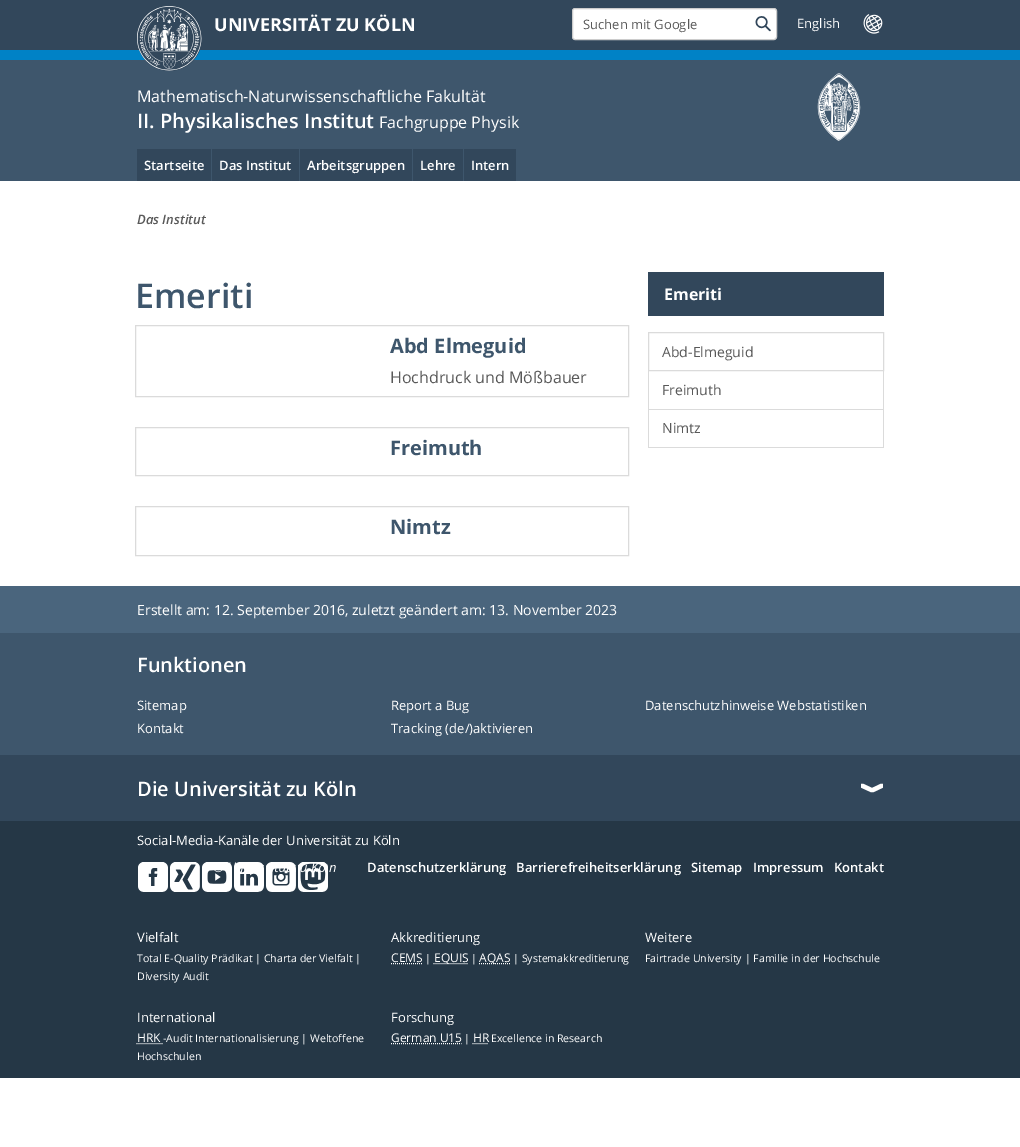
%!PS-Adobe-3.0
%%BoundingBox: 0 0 1020 1147
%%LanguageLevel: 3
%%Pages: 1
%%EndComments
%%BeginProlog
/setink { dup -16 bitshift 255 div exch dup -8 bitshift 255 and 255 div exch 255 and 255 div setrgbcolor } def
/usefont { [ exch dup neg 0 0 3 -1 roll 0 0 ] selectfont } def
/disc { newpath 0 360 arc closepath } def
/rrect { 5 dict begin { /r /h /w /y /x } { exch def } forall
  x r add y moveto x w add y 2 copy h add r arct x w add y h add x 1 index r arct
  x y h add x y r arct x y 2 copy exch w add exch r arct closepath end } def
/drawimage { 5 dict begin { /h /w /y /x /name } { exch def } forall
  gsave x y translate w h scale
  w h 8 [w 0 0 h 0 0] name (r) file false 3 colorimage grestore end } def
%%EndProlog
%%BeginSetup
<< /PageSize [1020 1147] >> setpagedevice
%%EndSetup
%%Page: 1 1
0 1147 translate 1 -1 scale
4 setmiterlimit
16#FFFFFF setink
0 0 1020 1147 rectfill
[
    [0 60 1020 121 16#3E566C]
    [0 0 1020 50 16#32475B]
    [0 50 1020 10 16#0082C6]
] { aload pop setink rectfill } forall
16#32475B setink
169.5 38.5 32.5 disc fill
(img1.raw) 137 6 65 65 drawimage
/OpenSans-Bold 18 usefont
16#FFFFFF setink
214 31 moveto (UNIVERSITÄT ZU KÖLN) show
572.5 8.5 204 31 2.5 rrect gsave fill grestore
16#CCCCCC setink
stroke
/OpenSans-Regular 13 usefont
16#595959 setink
583 29 moveto (Suchen mit Google) show
(img2.raw) 755 16 16 16 drawimage
16#FFFFFF setink
797 28 moveto (English) show
(img3.raw) 863 14 20 20 drawimage
/OpenSans-Regular 16 usefont
137 102 moveto (Mathematisch-Naturwissenschaftliche Fakultät) show
/OpenSans-SemiBold 20 usefont
137 128 moveto (II. Physikalisches Institut) show
/OpenSans-Regular 16 usefont
379 128 moveto (Fachgruppe Physik) show
(img4.raw) 817 73 44 68 drawimage
16#32475B setink
137 149 74 32 rectfill
/OpenSans-SemiBold 13 usefont
16#FFFFFF setink
144 170 moveto (Startseite) show
16#32475B setink
212 149 87 32 rectfill
16#FFFFFF setink
219 170 moveto (Das Institut) show
16#32475B setink
300 149 112 32 rectfill
16#FFFFFF setink
307 170 moveto (Arbeitsgruppen) show
16#32475B setink
413 149 50 32 rectfill
16#FFFFFF setink
420 170 moveto (Lehre) show
16#32475B setink
464 149 52 32 rectfill
16#FFFFFF setink
471 170 moveto (Intern) show
/OpenSans-SemiBoldItalic 13 usefont
16#595959 setink
137 224 moveto (Das Institut) show
/OpenSans-SemiBold 34 usefont
16#3E566C setink
135 308 moveto (Emeriti) show
16#DBDBDB setink
135.5 325.5 493 71 rectstroke
/OpenSans-Bold 20 usefont
16#3E566C setink
390 353 moveto (Abd Elmeguid) show
/OpenSans-Regular 16 usefont
16#595959 setink
390 383 moveto (Hochdruck und Mößbauer) show
16#DBDBDB setink
135.5 427.5 493 48 rectstroke
/OpenSans-Bold 20 usefont
16#3E566C setink
390 455 moveto (Freimuth) show
16#DBDBDB setink
135.5 506.5 493 49 rectstroke
16#3E566C setink
390 534 moveto (Nimtz) show
16#32475B setink
648 272 236 44 rectfill
/OpenSans-Bold 16 usefont
16#FFFFFF setink
664 300 moveto (Emeriti) show
16#DBDBDB setink
648.5 332.5 235 38 rectstroke
/OpenSans-Regular 14 usefont
16#595959 setink
662 357 moveto (Abd-Elmeguid) show
[
    [883 371 1 77 16#DBDBDB]
    [648 409 236 1 16#DBDBDB]
    [648 371 1 39 16#DBDBDB]
] { aload pop setink rectfill } forall
16#595959 setink
662 395 moveto (Freimuth) show
16#DBDBDB setink
648 447 236 1 rectfill
648 410 1 38 rectfill
16#595959 setink
662 433 moveto (Nimtz) show
16#4A657D setink
0 586 1020 47 rectfill
16#FFFFFF setink
137 615 moveto (Erstellt am: 12. September 2016, zuletzt geändert am: 13. November 2023) show
16#3E566C setink
0 633 1020 122 rectfill
/OpenSans-SemiBold 20 usefont
16#FFFFFF setink
137 672 moveto (Funktionen) show
/OpenSans-Regular 13 usefont
[
    [(Sitemap) 137 710]
    [(Report a Bug) 391 710]
    [(Datenschutzhinweise Webstatistiken) 645 710]
    [(Kontakt) 137 733]
    [(Tracking \(de/\)aktivieren) 391 733]
] { aload pop moveto show } forall
16#32475B setink
0 755 1020 66 rectfill
(img5.raw) 861 783 22 10 drawimage
/OpenSans-SemiBold 20 usefont
16#FFFFFF setink
137 796 moveto (Die Universität zu Köln) show
16#253746 setink
0 821 1020 257 rectfill
/OpenSans-Regular 13 usefont
16#FFFFFF setink
137 845 moveto (Social-Media-Kanäle der Universität zu Köln) show
(img6.raw) 138 862 30 30 drawimage
(img7.raw) 170 862 30 30 drawimage
(img8.raw) 202 862 30 30 drawimage
(img9.raw) 234 862 30 30 drawimage
(img10.raw) 266 862 30 30 drawimage
(img11.raw) 298 862 30 30 drawimage
/OpenSans-Italic 13 usefont
329 872 moveto (n) show
/OpenSans-SemiBold 13 usefont
[
    [(Datenschutzerklärung) 367 872]
    [(Barrierefreiheitserklärung) 516 872]
    [(Sitemap) 691 872]
    [(Impressum) 753 872]
    [(Kontakt) 834 872]
] { aload pop moveto show } forall
/OpenSans-Regular 13 usefont
137 942 moveto (Vielfalt) show
/OpenSans-Regular 10.6 usefont
137 962 moveto (Total E-Quality Prädikat | Charta der Vielfalt |) show
137 980 moveto (Diversity Audit) show
/OpenSans-Regular 13 usefont
391 942 moveto (Akkreditierung) show
/OpenSans-Regular 12 usefont
391 962 moveto (CEMS) show
[1 1] 0 setdash
391 963.5 moveto 422 963.5 lineto stroke
/OpenSans-Regular 10.6 usefont
425 962 moveto (|) show
433.5 963.5 moveto 468 963.5 lineto stroke
/OpenSans-Regular 12 usefont
434 962 moveto (EQUIS) show
/OpenSans-Regular 10.6 usefont
471 962 moveto (|) show
479 963.5 moveto 510 963.5 lineto stroke
/OpenSans-Regular 12 usefont
479 962 moveto (AQAS) show
/OpenSans-Regular 10.6 usefont
513 962 moveto (| Systemakkreditierung) show
/OpenSans-Regular 13 usefont
645 942 moveto (Weitere) show
/OpenSans-Regular 10.6 usefont
645 962 moveto (Fairtrade University | Familie in der Hochschule) show
/OpenSans-Regular 13 usefont
137 1022 moveto (International) show
/OpenSans-Regular 12 usefont
137 1042 moveto (HRK) show
/OpenSans-Regular 10.6 usefont
163 1042 moveto (-Audit Internationalisierung | Weltoffene) show
136.5 1043.5 moveto 163 1043.5 lineto stroke
137 1060 moveto (Hochschulen) show
/OpenSans-Regular 13 usefont
391 1022 moveto (Forschung) show
/OpenSans-Regular 12 usefont
391 1042 moveto (German U15) show
391 1043.5 moveto 461.5 1043.5 lineto stroke
/OpenSans-Regular 10.6 usefont
464 1042 moveto (|) show
/OpenSans-Regular 12 usefont
473 1042 moveto (HR) show
472.5 1043.5 moveto 488.5 1043.5 lineto stroke
/OpenSans-Regular 10.6 usefont
491 1042 moveto (Excellence in Research) show
showpage
%%EOF
